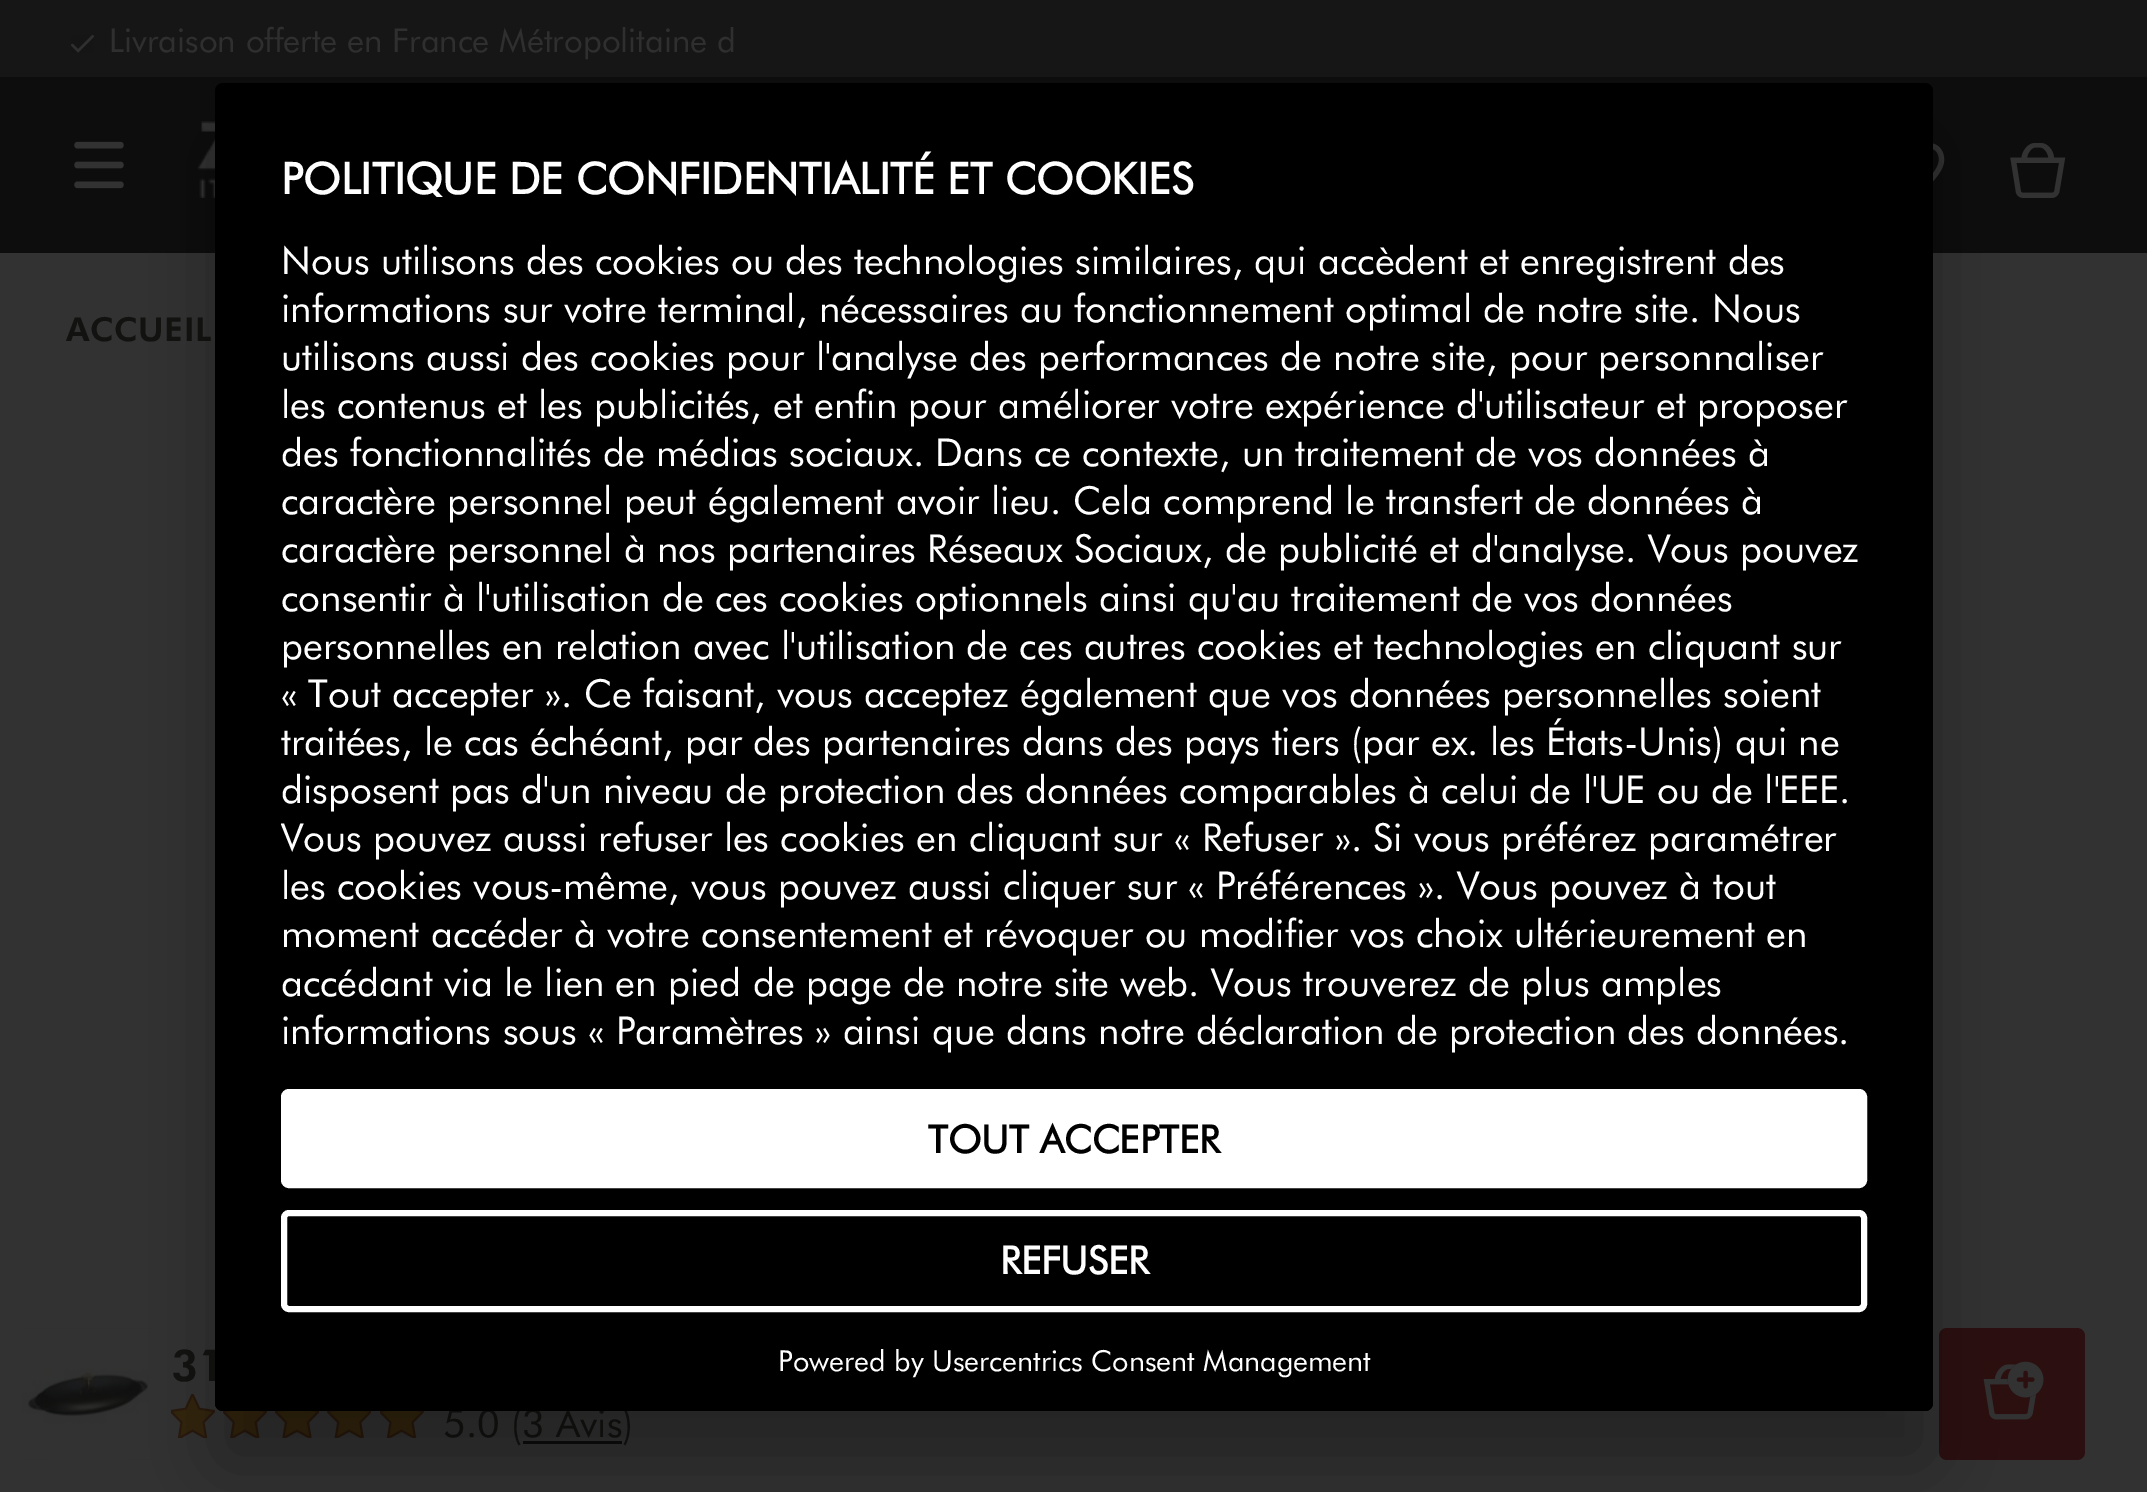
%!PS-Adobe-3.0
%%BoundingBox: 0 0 2147 1492
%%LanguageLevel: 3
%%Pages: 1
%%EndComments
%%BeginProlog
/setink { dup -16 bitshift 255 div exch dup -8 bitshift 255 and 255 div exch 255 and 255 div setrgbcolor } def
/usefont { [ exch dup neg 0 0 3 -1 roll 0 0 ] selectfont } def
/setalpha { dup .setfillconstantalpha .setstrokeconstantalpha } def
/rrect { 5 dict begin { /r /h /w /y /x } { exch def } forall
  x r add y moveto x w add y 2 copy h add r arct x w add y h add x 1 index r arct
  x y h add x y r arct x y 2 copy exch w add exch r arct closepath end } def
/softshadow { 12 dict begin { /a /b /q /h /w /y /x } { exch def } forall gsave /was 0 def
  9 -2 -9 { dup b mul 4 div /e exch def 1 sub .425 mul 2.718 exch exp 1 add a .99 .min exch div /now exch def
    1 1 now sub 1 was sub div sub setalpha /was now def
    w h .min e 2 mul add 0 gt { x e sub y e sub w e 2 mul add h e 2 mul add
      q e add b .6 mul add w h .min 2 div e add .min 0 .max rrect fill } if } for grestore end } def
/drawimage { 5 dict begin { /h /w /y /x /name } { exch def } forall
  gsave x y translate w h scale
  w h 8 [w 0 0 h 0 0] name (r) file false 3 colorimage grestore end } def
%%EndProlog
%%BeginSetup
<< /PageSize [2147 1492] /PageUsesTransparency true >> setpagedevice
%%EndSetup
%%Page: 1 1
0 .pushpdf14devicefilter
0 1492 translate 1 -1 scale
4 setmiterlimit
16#161616 setink
0 0 2147 1492 rectfill
(img1.raw) 71 35 23 18 drawimage
/Futura-Regular 33 usefont
16#2F2F2F setink
109 52 moveto (Livraison offerte en France Métropolitaine d) show
16#0D0D0D setink
0 77 2147 176 rectfill
(img2.raw) 74 141 50 48 drawimage
(img3.raw) 198 121 17 77 drawimage
(img4.raw) 1933 143 12 39 drawimage
(img5.raw) 2010 143 56 55 drawimage
16#323232 setink
0 253 2147 1239 rectfill
/Futura-Bold 33 usefont
16#121211 setink
66 341 moveto 0.5 0 (ACCUEIL) ashow
(img6.raw) 22 1328 132 132 drawimage
/Futura-Bold 44 usefont
171 1381 moveto (31) show
(img7.raw) 171 1394 44 44 drawimage
(img8.raw) 223 1411 44 27 drawimage
(img9.raw) 275 1411 44 27 drawimage
(img10.raw) 327 1411 44 27 drawimage
(img11.raw) 380 1411 44 27 drawimage
/Futura-Regular 38.5 usefont
[
    [(5.0) 443 1437]
    [(\() 511 1437]
    [(3 Avis) 522 1437]
] { aload pop moveto show } forall
16#0D0D0D setink
523 1441 99 3 rectfill
16#121211 setink
622 1437 moveto (\)) show
16#2C0F10 setink
1939 1328 146 132 8 rrect fill
(img12.raw) 1983 1361 61 59 drawimage
16#000000 setink
215 138 1718 1328 8 38.5 0.3 softshadow
215 83 1718 1328 8 rrect fill
/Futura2-Bold 43.3 usefont
16#FFFFFF setink
281 194 moveto (POLITIQUE DE CONFIDENTIALITÉ ET COOKIES) show
/Futura-Regular 38.5 usefont
[
    [(Nous utilisons des cookies ou des technologies similaires, qui accèdent et enregistrent des) 281 274]
    [(informations sur votre terminal, nécessaires au fonctionnement optimal de notre site. Nous) 281 322]
    [(utilisons aussi des cookies pour l'analyse des performances de notre site, pour personnaliser) 281 370]
    [(les contenus et les publicités, et enfin pour améliorer votre expérience d'utilisateur et proposer) 281 418]
    [(des fonctionnalités de médias sociaux. Dans ce contexte, un traitement de vos données à) 281 466]
    [(caractère personnel peut également avoir lieu. Cela comprend le transfert de données à) 281 514]
    [(caractère personnel à nos partenaires Réseaux Sociaux, de publicité et d'analyse. Vous pouvez) 281 562]
    [(consentir à l'utilisation de ces cookies optionnels ainsi qu'au traitement de vos données) 281 611]
    [(personnelles en relation avec l'utilisation de ces autres cookies et technologies en cliquant sur) 281 659]
    [(« Tout accepter ». Ce faisant, vous acceptez également que vos données personnelles soient) 281 707]
    [(traitées, le cas échéant, par des partenaires dans des pays tiers \(par ex. les États-Unis\) qui ne) 281 755]
    [(disposent pas d'un niveau de protection des données comparables à celui de l'UE ou de l'EEE.) 281 803]
] { aload pop moveto show } forall
gsave
281 226 1586 830 rectclip
281 851 moveto (Vous pouvez aussi refuser les cookies en cliquant sur « Refuser ». Si vous préférez paramétrer) show
grestore
[
    [(les cookies vous-même, vous pouvez aussi cliquer sur « Préférences ». Vous pouvez à tout) 281 899]
    [(moment accéder à votre consentement et révoquer ou modifier vos choix ultérieurement en) 281 947]
    [(accédant via le lien en pied de page de notre site web. Vous trouverez de plus amples) 281 996]
    [(informations sous « Paramètres » ainsi que dans notre déclaration de protection des données.) 281 1044]
] { aload pop moveto show } forall
16#000000 setink
215 1056 moveto 1933 1056 lineto 1933 1403 lineto 1933 1407.5 1929.5 1411 1925 1411 curveto 223 1411 lineto 218.5 1411 215 1407.5 215 1403 curveto closepath fill
16#FFFFFF setink
284 1092 1580 93 5 rrect gsave fill grestore
6 setlinewidth
stroke
/Futura2-Bold 38.5 usefont
16#000000 setink
928 1153 moveto (TOUT ACCEPTER) show
16#FFFFFF setink
284 1213 1580 96 5 rrect stroke
1000 1274 moveto (REFUSER) show
/Futura-Regular 28.9 usefont
778 1371 moveto (Powered by Usercentrics Consent Management) show
.poppdf14devicefilter showpage
%%EOF
